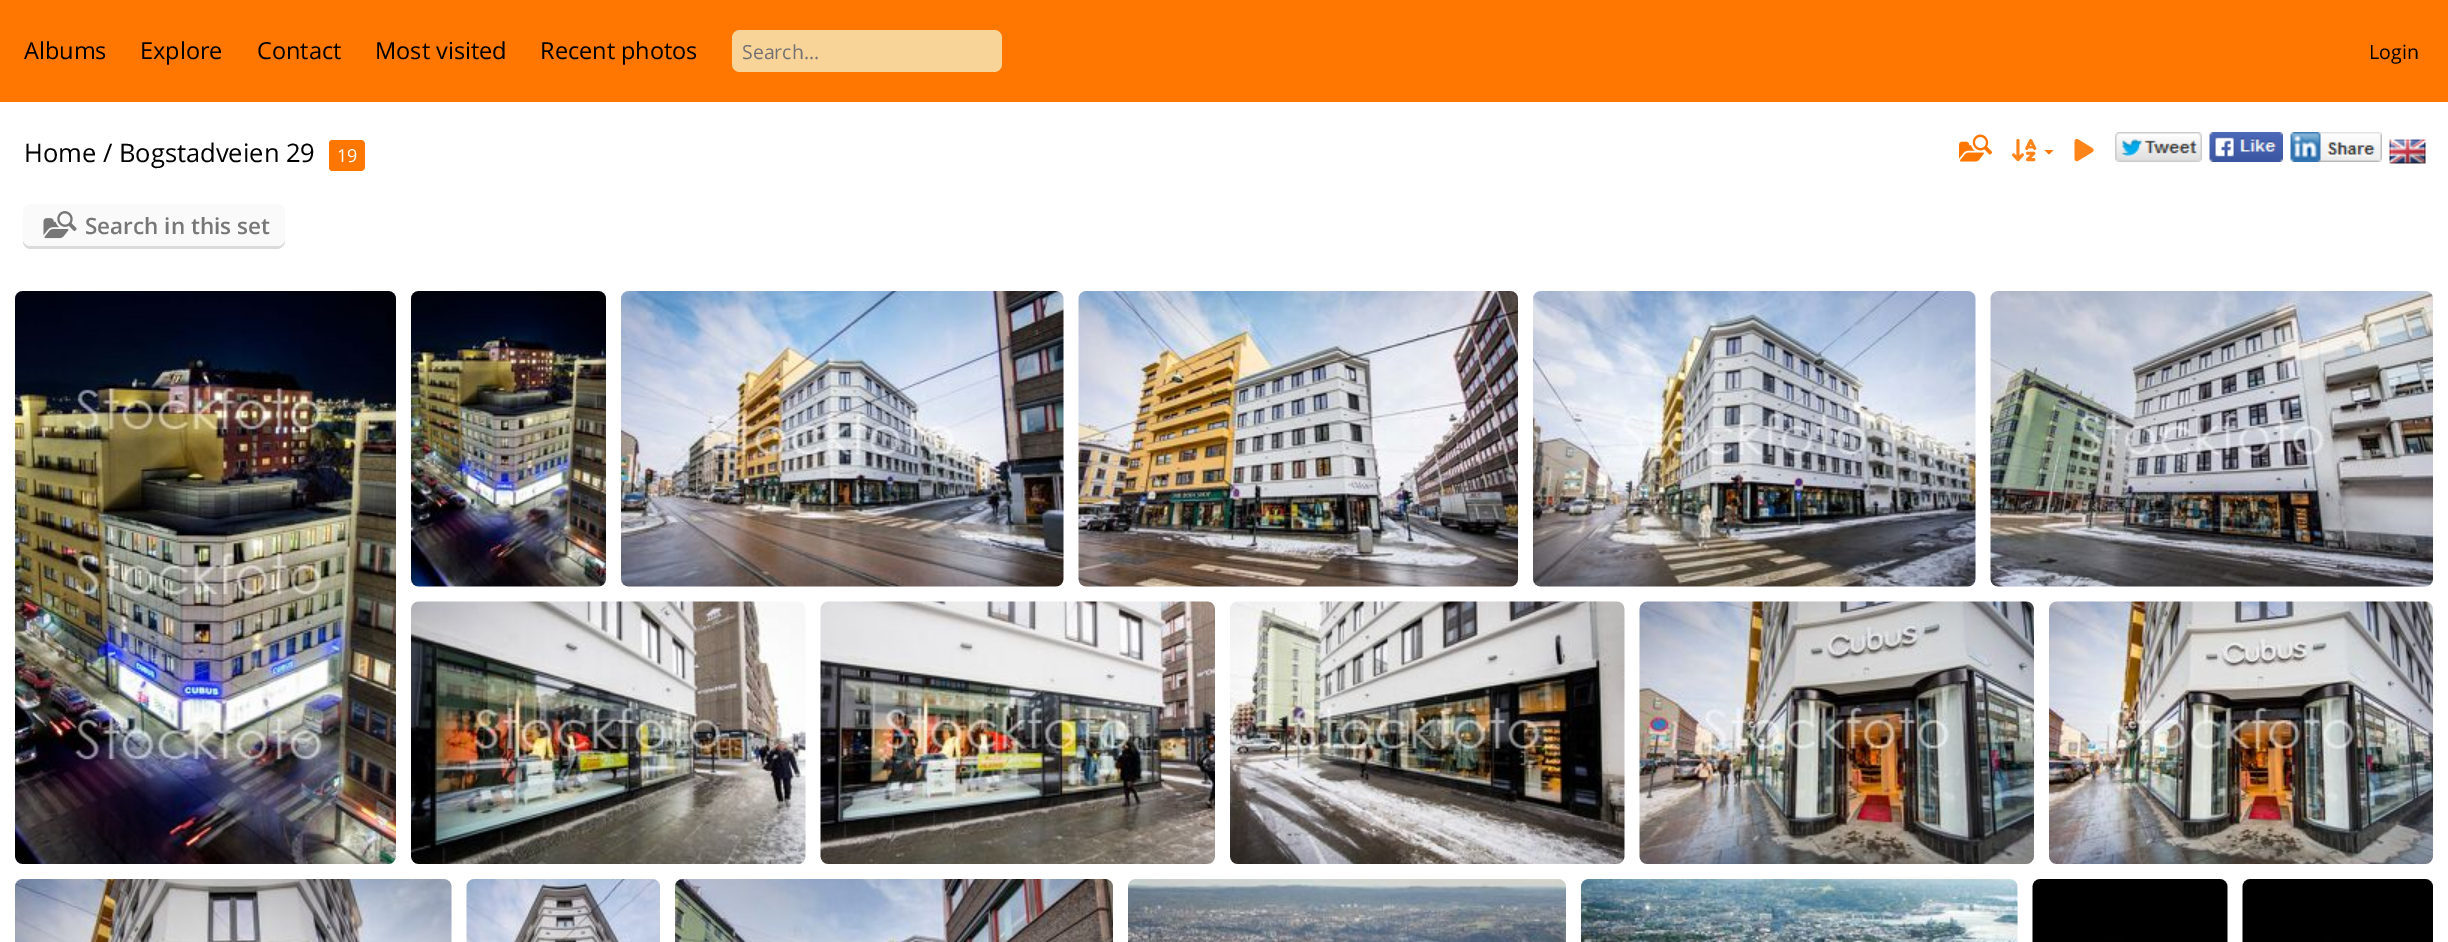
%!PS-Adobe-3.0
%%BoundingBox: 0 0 2448 942
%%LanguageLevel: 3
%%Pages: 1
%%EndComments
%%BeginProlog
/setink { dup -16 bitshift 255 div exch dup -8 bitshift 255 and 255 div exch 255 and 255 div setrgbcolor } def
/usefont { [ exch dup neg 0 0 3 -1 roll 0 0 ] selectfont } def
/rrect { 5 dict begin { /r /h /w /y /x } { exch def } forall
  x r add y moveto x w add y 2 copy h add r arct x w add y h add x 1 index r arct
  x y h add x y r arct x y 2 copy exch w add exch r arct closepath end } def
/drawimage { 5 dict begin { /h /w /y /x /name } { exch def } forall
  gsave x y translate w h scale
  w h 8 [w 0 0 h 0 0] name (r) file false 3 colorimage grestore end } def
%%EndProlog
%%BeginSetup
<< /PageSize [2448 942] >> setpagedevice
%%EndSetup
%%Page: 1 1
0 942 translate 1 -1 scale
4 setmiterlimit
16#FFFFFF setink
0 0 2448 942 rectfill
16#FF7700 setink
0 0 2448 102 rectfill
/OpenSans-Regular 23.5 usefont
16#000000 setink
[
    [(Albums) 24 59]
    [(Explore) 140 59]
    [(Contact) 257 59]
    [(Most visited) 375 59]
    [(Recent photos) 540 59]
] { aload pop moveto show } forall
16#F9D499 setink
732 30 270 42 8 rrect fill
/OpenSans-Regular 19.5 usefont
16#717175 setink
742 59 moveto (Search...) show
16#000000 setink
2369 59 moveto (Login) show
/OpenSans-Regular 25.5 usefont
24 162 moveto (Home / Bogstadveien 29) show
16#FF7700 setink
336 140 21 31 rectfill
/OpenSans-Regular 18 usefont
16#FFFFFF setink
337 162 moveto (19) show
16#FF7700 setink
332.5 140 moveto 336 140 lineto 336 171 lineto 332.5 171 lineto 330.5 171 329 169.5 329 167.5 curveto 329 143.5 lineto 329 141.5 330.5 140 332.5 140 curveto closepath fill
357 140 moveto 361 140 lineto 363 140 365 142 365 144 curveto 365 167 lineto 365 169 363 171 361 171 curveto 357 171 lineto closepath fill
(img1.raw) 1959 134 34 28 drawimage
(img2.raw) 2012 138 25 24 drawimage
2044.5 150 moveto 2053.5 150 lineto 2049 154.5 lineto closepath fill
(img3.raw) 2074 138 20 24 drawimage
(img4.raw) 2115 132 87 30 drawimage
(img5.raw) 2209 132 74 30 drawimage
(img6.raw) 2290 132 92 30 drawimage
(img7.raw) 2389 139 37 25 drawimage
16#DBDBDB setink
23 241 moveto 23 246 27 249 31 249 curveto 277 249 lineto 281 249 285 245 285 241 curveto 285 238 lineto 285 243 282 246 278 246 curveto 30 246 lineto 27 246 24 244 23 241 curveto closepath fill
16#FAFAFA setink
23 204 262 42 8 rrect fill
(img8.raw) 43 211 34 28 drawimage
/OpenSans-SemiBold 22.5 usefont
16#777777 setink
85 234 moveto (Search in this set) show
(img9.raw) 15 291 381 573 drawimage
(img10.raw) 411 291 195 296 drawimage
(img11.raw) 621 291 443 296 drawimage
(img12.raw) 1078 291 440 296 drawimage
(img13.raw) 1533 291 443 296 drawimage
(img14.raw) 1990 291 443 296 drawimage
(img15.raw) 411 601 395 263 drawimage
(img16.raw) 820 601 395 263 drawimage
(img17.raw) 1230 601 395 263 drawimage
(img18.raw) 1639 601 395 263 drawimage
(img19.raw) 2049 601 384 263 drawimage
(img20.raw) 15 879 437 63 drawimage
(img21.raw) 466 879 194 63 drawimage
(img22.raw) 675 879 438 63 drawimage
(img23.raw) 1128 879 438 63 drawimage
(img24.raw) 1581 879 437 63 drawimage
(img25.raw) 2032 879 196 63 drawimage
(img26.raw) 2242 879 191 63 drawimage
showpage
%%EOF
